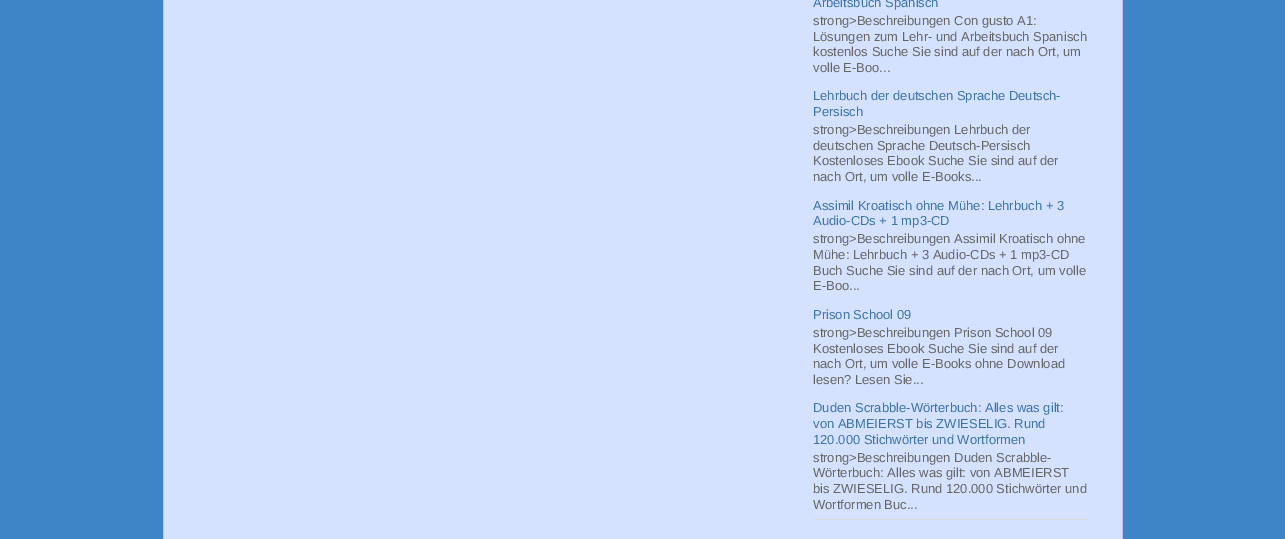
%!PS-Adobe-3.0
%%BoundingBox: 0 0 1285 539
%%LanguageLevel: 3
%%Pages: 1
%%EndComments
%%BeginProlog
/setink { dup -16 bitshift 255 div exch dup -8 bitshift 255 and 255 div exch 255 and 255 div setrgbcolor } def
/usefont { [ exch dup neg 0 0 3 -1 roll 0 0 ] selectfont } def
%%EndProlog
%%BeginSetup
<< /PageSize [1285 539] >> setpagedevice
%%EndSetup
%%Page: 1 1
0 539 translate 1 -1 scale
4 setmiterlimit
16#3D85C6 setink
0 0 1285 539 rectfill
[
    [164 0 958 539 16#D4E1FF]
    [1122 0 1 539 16#BBBBFF]
    [163 0 1 539 16#BBBBFF]
    [813 519 275 1 16#DBDBDB]
] { aload pop setink rectfill } forall
/LiberationSans-Regular 13 usefont
16#3D74A5 setink
813 7 moveto (Arbeitsbuch Spanisch) show
16#666666 setink
[
    [(strong>Beschreibungen Con gusto A1:) 813 25]
    [(Lösungen zum Lehr- und Arbeitsbuch Spanisch) 813 41]
    [(kostenlos Suche Sie sind auf der nach Ort, um) 813 56]
    [(volle E-Boo...) 813 72]
] { aload pop moveto show } forall
16#3D74A5 setink
813 100 moveto (Lehrbuch der deutschen Sprache Deutsch-) show
813 116 moveto (Persisch) show
16#666666 setink
[
    [(strong>Beschreibungen Lehrbuch der) 813 134]
    [(deutschen Sprache Deutsch-Persisch) 813 150]
    [(Kostenloses Ebook Suche Sie sind auf der) 813 165]
    [(nach Ort, um volle E-Books...) 813 181]
] { aload pop moveto show } forall
16#3D74A5 setink
813 210 moveto (Assimil Kroatisch ohne Mühe: Lehrbuch + 3) show
813 225 moveto (Audio-CDs + 1 mp3-CD) show
16#666666 setink
[
    [(strong>Beschreibungen Assimil Kroatisch ohne) 813 243]
    [(Mühe: Lehrbuch + 3 Audio-CDs + 1 mp3-CD) 813 259]
    [(Buch Suche Sie sind auf der nach Ort, um volle) 813 275]
    [(E-Boo...) 813 290]
] { aload pop moveto show } forall
16#3D74A5 setink
813 319 moveto (Prison School 09) show
16#666666 setink
[
    [(strong>Beschreibungen Prison School 09) 813 337]
    [(Kostenloses Ebook Suche Sie sind auf der) 813 353]
    [(nach Ort, um volle E-Books ohne Download) 813 368]
    [(lesen? Lesen Sie...) 813 384]
] { aload pop moveto show } forall
16#3D74A5 setink
[
    [(Duden Scrabble-Wörterbuch: Alles was gilt:) 813 412]
    [(von ABMEIERST bis ZWIESELIG. Rund) 813 428]
    [(120.000 Stichwörter und Wortformen) 813 444]
] { aload pop moveto show } forall
16#666666 setink
[
    [(strong>Beschreibungen Duden Scrabble-) 813 462]
    [(Wörterbuch: Alles was gilt: von ABMEIERST) 813 477]
    [(bis ZWIESELIG. Rund 120.000 Stichwörter und) 813 493]
    [(Wortformen Buc...) 813 509]
] { aload pop moveto show } forall
showpage
%%EOF
